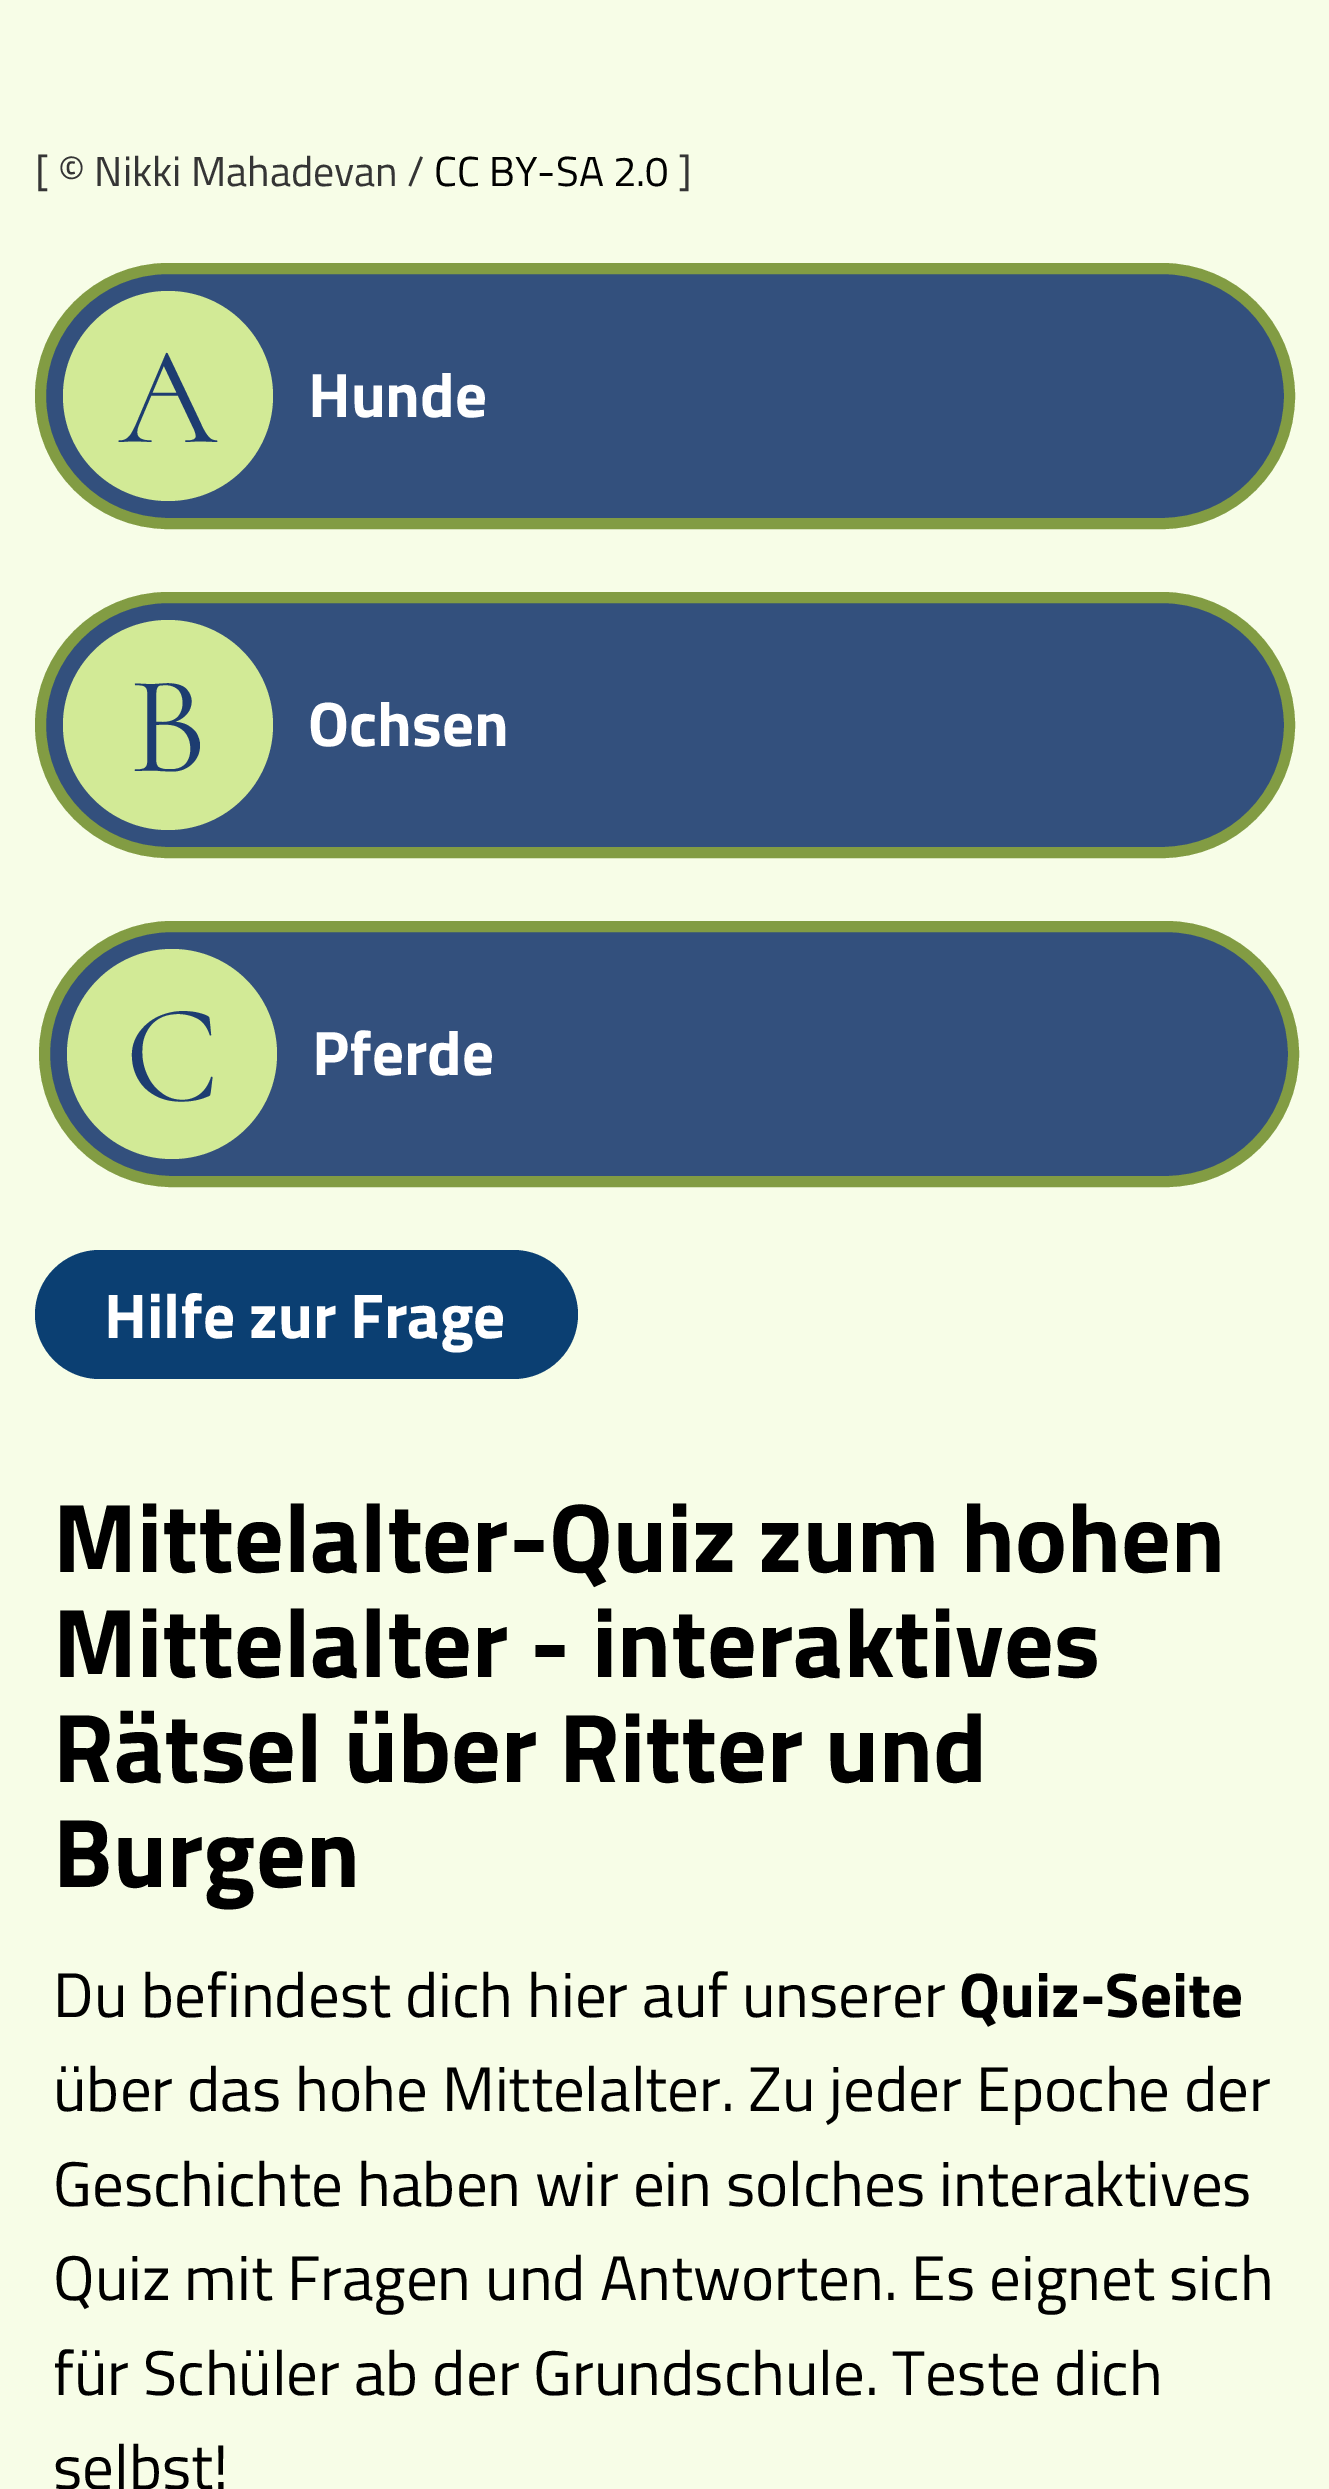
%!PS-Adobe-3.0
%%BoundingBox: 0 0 1329 2489
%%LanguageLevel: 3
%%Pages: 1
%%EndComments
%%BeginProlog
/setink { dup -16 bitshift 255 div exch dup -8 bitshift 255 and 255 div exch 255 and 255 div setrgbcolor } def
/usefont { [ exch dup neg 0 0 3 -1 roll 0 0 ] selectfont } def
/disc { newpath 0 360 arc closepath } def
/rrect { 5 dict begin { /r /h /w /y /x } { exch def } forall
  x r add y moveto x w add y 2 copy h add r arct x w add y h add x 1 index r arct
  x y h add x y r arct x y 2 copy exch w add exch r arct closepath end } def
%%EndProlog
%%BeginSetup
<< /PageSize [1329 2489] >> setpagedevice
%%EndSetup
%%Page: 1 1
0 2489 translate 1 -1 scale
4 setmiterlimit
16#F7FDE7 setink
0 0 1329 2489 rectfill
/TitilliumWeb-Regular 42 usefont
16#353535 setink
35 186 moveto ([ © Nikki Mahadevan /) show
16#000000 setink
434 186 moveto (CC BY-SA 2.0) show
16#353535 setink
678 186 moveto (]) show
16#33507D setink
40.5 268.5 1249 255 127.5 rrect gsave fill grestore
16#829C43 setink
11 setlinewidth
stroke
16#D2EA96 setink
168 396 105 disc fill
/CormorantSC-Regular 140 usefont
16#1D3D71 setink
119 442 moveto (A) show
/TitilliumWeb-Bold 63 usefont
16#FFFFFF setink
308 417 moveto (Hunde) show
16#33507D setink
40.5 597.5 1249 255 127.5 rrect gsave fill grestore
16#829C43 setink
stroke
16#D2EA96 setink
168 725 105 disc fill
/CormorantSC-Regular 140 usefont
16#1D3D71 setink
129 771 moveto (B) show
/TitilliumWeb-Bold 63 usefont
16#FFFFFF setink
308 746 moveto (Ochsen) show
16#33507D setink
44.5 926.5 1249 255 127.5 rrect gsave fill grestore
16#829C43 setink
stroke
16#D2EA96 setink
172 1054 105 disc fill
/CormorantSC-Regular 140 usefont
16#1D3D71 setink
125 1100 moveto (C) show
/TitilliumWeb-Bold 63 usefont
16#FFFFFF setink
312 1075 moveto (Pferde) show
16#0B3F72 setink
35 1250 543 129 64.5 rrect fill
/TitilliumWeb-Bold 63.25 usefont
16#FFFFFF setink
104 1338 moveto (Hilfe zur Frage) show
/TitilliumWeb-Bold 98 usefont
16#000000 setink
[
    [(Mittelalter-Quiz zum hohen) 53 1572]
    [(Mittelalter - interaktives) 53 1677]
    [(Rätsel über Ritter und) 53 1782]
    [(Burgen) 53 1887]
] { aload pop moveto show } forall
/TitilliumWeb-Regular 63 usefont
53 2017 moveto (Du befindest dich hier auf unserer) show
/TitilliumWeb-Bold 63 usefont
959 2017 moveto (Quiz-Seite) show
/TitilliumWeb-Regular 63 usefont
[
    [(über das hohe Mittelalter. Zu jeder Epoche der) 53 2111]
    [(Geschichte haben wir ein solches interaktives) 53 2206]
    [(Quiz mit Fragen und Antworten. Es eignet sich) 53 2300]
    [(für Schüler ab der Grundschule. Teste dich) 53 2395]
    [(selbst!) 53 2489]
] { aload pop moveto show } forall
showpage
%%EOF
